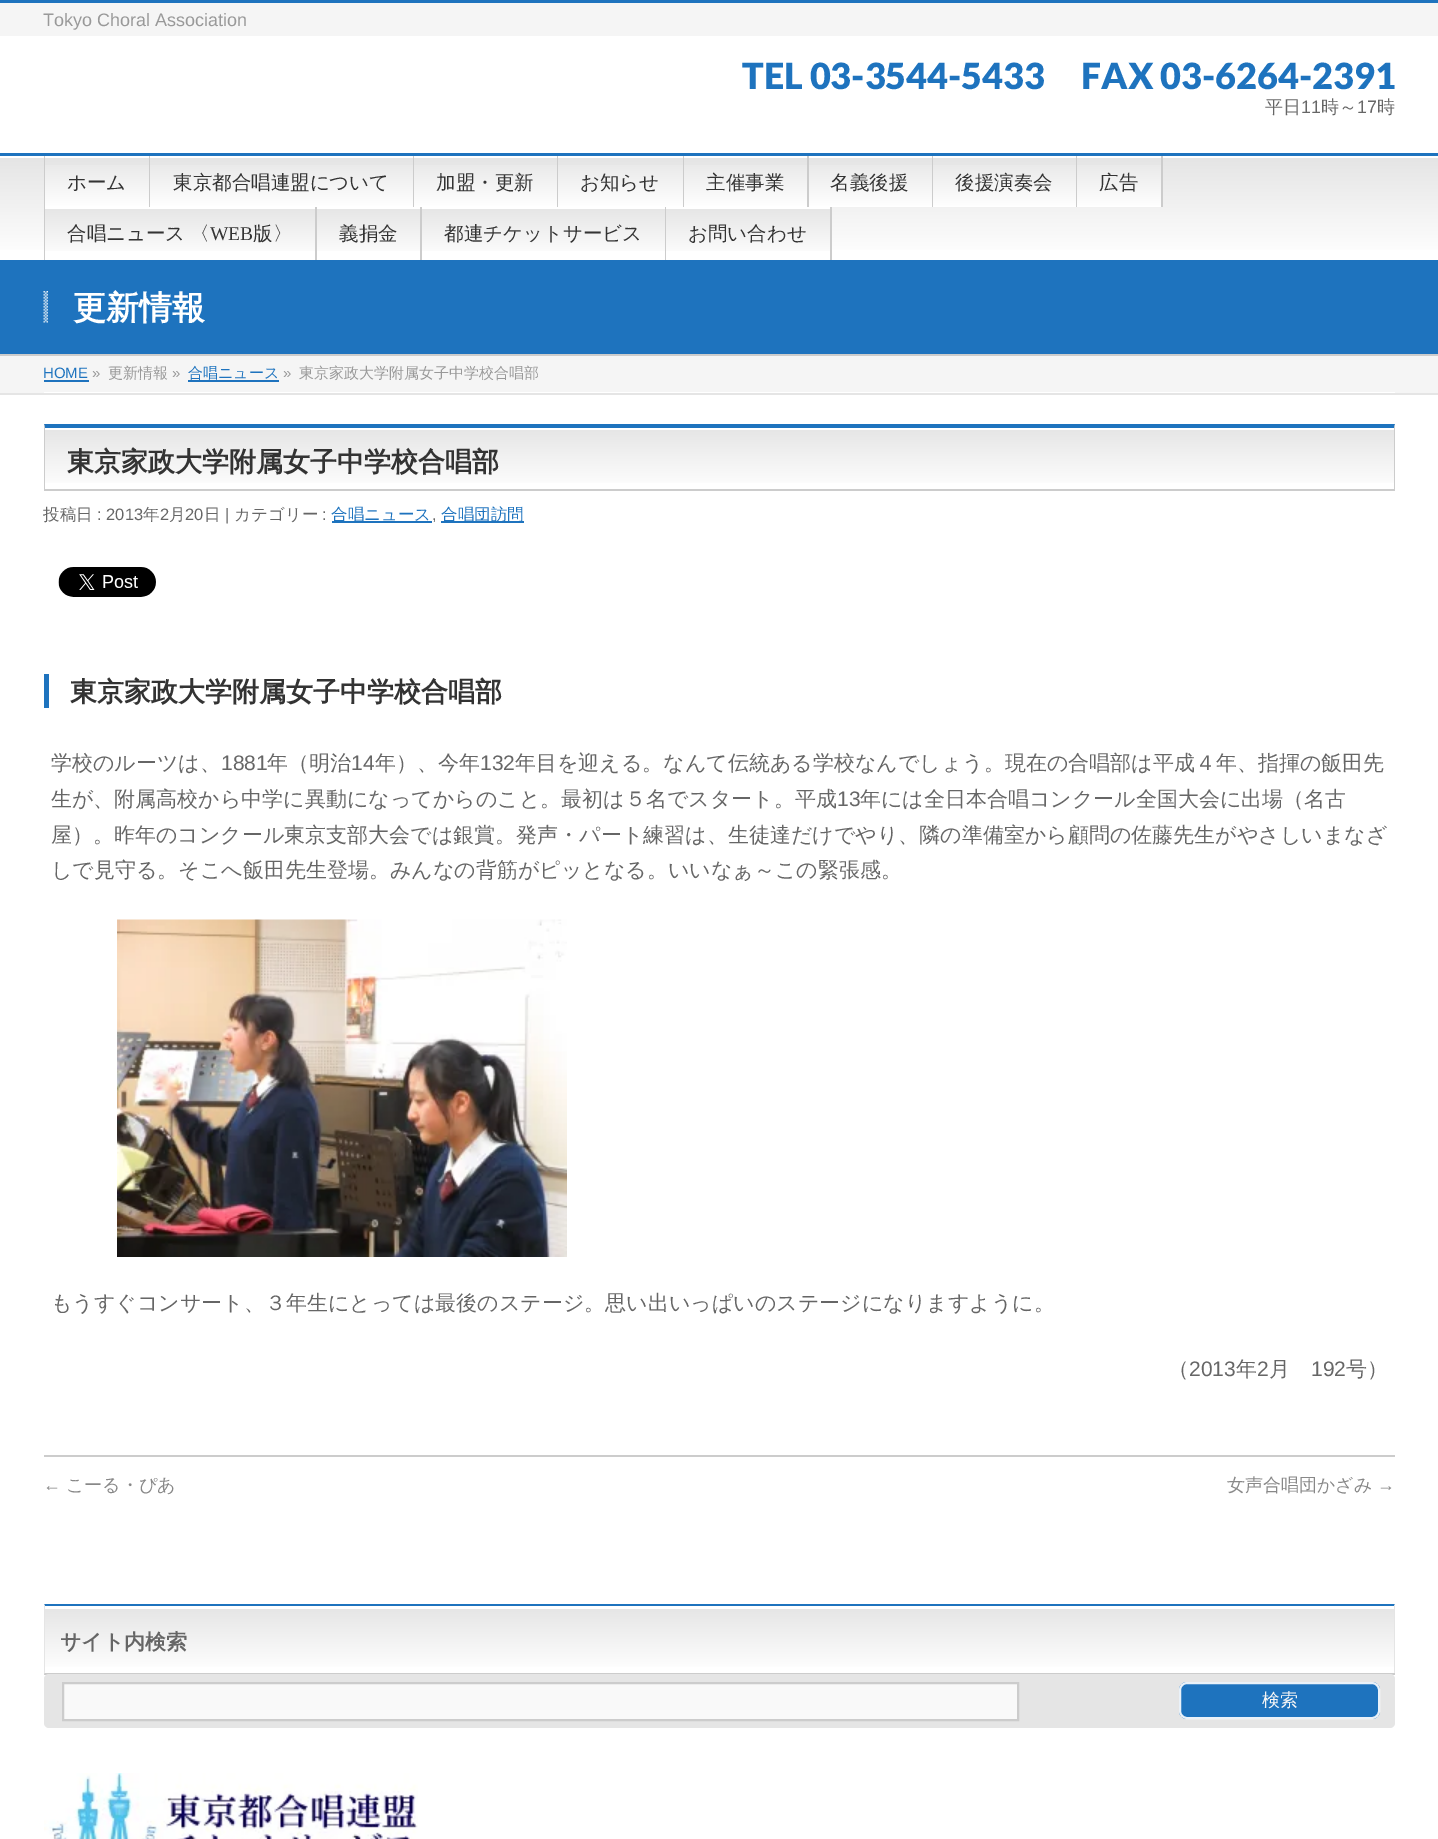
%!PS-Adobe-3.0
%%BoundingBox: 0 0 1438 1839
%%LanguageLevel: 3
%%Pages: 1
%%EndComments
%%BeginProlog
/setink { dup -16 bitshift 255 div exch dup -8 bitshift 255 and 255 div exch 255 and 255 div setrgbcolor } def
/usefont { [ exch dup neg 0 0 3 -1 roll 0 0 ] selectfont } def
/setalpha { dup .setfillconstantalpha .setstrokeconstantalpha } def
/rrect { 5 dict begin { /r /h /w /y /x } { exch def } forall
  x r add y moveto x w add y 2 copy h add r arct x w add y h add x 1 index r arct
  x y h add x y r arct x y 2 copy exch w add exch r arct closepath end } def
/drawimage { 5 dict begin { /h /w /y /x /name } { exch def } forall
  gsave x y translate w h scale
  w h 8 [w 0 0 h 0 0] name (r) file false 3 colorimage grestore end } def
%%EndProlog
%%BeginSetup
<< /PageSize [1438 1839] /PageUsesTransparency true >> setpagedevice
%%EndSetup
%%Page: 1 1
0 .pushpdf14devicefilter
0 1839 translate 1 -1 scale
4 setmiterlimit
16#FFFFFF setink
0 0 1438 1839 rectfill
16#F5F5F5 setink
0 3 1438 33 rectfill
16#1E73BE setink
0 0 1438 3 rectfill
/LiberationSans-Regular 18 usefont
16#999999 setink
43 26 moveto (Tokyo Choral Association) show
/Lato-Black 36 usefont
16#1E73BE setink
742 89 moveto (TEL 03-3544-5433) show
1081 89 moveto (FAX 03-6264-2391) show
/WenQuanYiZenHei-Medium 18 usefont
16#666666 setink
1265 113 moveto (平日) show
/LiberationSans-Regular 18 usefont
1301 113 moveto (11) show
/WenQuanYiZenHei-Medium 18 usefont
1321 113 moveto (時～) show
/LiberationSans-Regular 18 usefont
1357 113 moveto (17) show
/WenQuanYiZenHei-Medium 18 usefont
1377 113 moveto (時) show
gsave 0 158 moveto 1438 158 lineto 1438 250 lineto 0 250 lineto closepath clip newpath
<< /ShadingType 2 /ColorSpace /DeviceRGB /Coords [0 156 0 260] /Extend [true true] /Function << /FunctionType 2 /Domain [0 1] /C0 [0.898 0.898 0.898] /C1 [1 1 1] /N 1 >> >> shfill grestore
16#1E73BE setink
0 153 1438 3 rectfill
16#CCCCCC setink
44 156 1 104 rectfill
gsave 45 165 moveto 149 165 lineto 149 207 lineto 45 207 lineto closepath clip newpath
<< /ShadingType 2 /ColorSpace /DeviceRGB /Coords [45 156 45 207] /Extend [true true] /Function << /FunctionType 2 /Domain [0 1] /C0 [0.898 0.898 0.898] /C1 [1 1 1] /N 1 >> >> shfill grestore
149 156 1 51 rectfill
/WenQuanYiZenHei-Medium 19.5 usefont
16#333333 setink
67 189 moveto (ホーム) show
gsave 150 165 moveto 413 165 lineto 413 207 lineto 150 207 lineto closepath clip newpath
<< /ShadingType 2 /ColorSpace /DeviceRGB /Coords [150 156 150 207] /Extend [true true] /Function << /FunctionType 2 /Domain [0 1] /C0 [0.898 0.898 0.898] /C1 [1 1 1] /N 1 >> >> shfill grestore
16#CCCCCC setink
413 156 1 51 rectfill
16#333333 setink
173 189 moveto (東京都合唱連盟について) show
gsave 414 165 moveto 557 165 lineto 557 207 lineto 414 207 lineto closepath clip newpath
<< /ShadingType 2 /ColorSpace /DeviceRGB /Coords [414 156 414 207] /Extend [true true] /Function << /FunctionType 2 /Domain [0 1] /C0 [0.898 0.898 0.898] /C1 [1 1 1] /N 1 >> >> shfill grestore
16#CCCCCC setink
557 156 1 51 rectfill
16#333333 setink
436 189 moveto (加盟・更新) show
gsave 558 165 moveto 683 165 lineto 683 207 lineto 558 207 lineto closepath clip newpath
<< /ShadingType 2 /ColorSpace /DeviceRGB /Coords [558 156 558 207] /Extend [true true] /Function << /FunctionType 2 /Domain [0 1] /C0 [0.898 0.898 0.898] /C1 [1 1 1] /N 1 >> >> shfill grestore
16#CCCCCC setink
683 156 1 51 rectfill
16#333333 setink
580 189 moveto (お知らせ) show
gsave 684 165 moveto 807 165 lineto 807 207 lineto 684 207 lineto closepath clip newpath
<< /ShadingType 2 /ColorSpace /DeviceRGB /Coords [684 156 684 207] /Extend [true true] /Function << /FunctionType 2 /Domain [0 1] /C0 [0.898 0.898 0.898] /C1 [1 1 1] /N 1 >> >> shfill grestore
16#CCCCCC setink
807 156 2 51 rectfill
16#333333 setink
706 189 moveto (主催事業) show
gsave 809 165 moveto 932 165 lineto 932 207 lineto 809 207 lineto closepath clip newpath
<< /ShadingType 2 /ColorSpace /DeviceRGB /Coords [809 156 809 207] /Extend [true true] /Function << /FunctionType 2 /Domain [0 1] /C0 [0.898 0.898 0.898] /C1 [1 1 1] /N 1 >> >> shfill grestore
16#CCCCCC setink
932 156 1 51 rectfill
16#333333 setink
830 189 moveto (名義後援) show
gsave 933 165 moveto 1076 165 lineto 1076 207 lineto 933 207 lineto closepath clip newpath
<< /ShadingType 2 /ColorSpace /DeviceRGB /Coords [933 156 933 207] /Extend [true true] /Function << /FunctionType 2 /Domain [0 1] /C0 [0.898 0.898 0.898] /C1 [1 1 1] /N 1 >> >> shfill grestore
16#CCCCCC setink
1076 156 1 51 rectfill
16#333333 setink
955 189 moveto (後援演奏会) show
gsave 1077 165 moveto 1161 165 lineto 1161 207 lineto 1077 207 lineto closepath clip newpath
<< /ShadingType 2 /ColorSpace /DeviceRGB /Coords [1077 156 1077 207] /Extend [true true] /Function << /FunctionType 2 /Domain [0 1] /C0 [0.898 0.898 0.898] /C1 [1 1 1] /N 1 >> >> shfill grestore
16#CCCCCC setink
1161 156 2 51 rectfill
16#333333 setink
1099 189 moveto (広告) show
gsave 45 209 moveto 315 209 lineto 315 251 lineto 45 251 lineto closepath clip newpath
<< /ShadingType 2 /ColorSpace /DeviceRGB /Coords [45 207 45 260] /Extend [true true] /Function << /FunctionType 2 /Domain [0 1] /C0 [0.898 0.898 0.898] /C1 [1 1 1] /N 1 >> >> shfill grestore
16#FFFFFF setink
45 207 270 2 rectfill
16#CCCCCC setink
315 207 2 53 rectfill
16#333333 setink
67 240 moveto -1 0 32 (合唱ニュース 〈) widthshow
/LiberationSerif-Regular 19.5 usefont
210 240 moveto (WEB) show
/WenQuanYiZenHei-Medium 19.5 usefont
253 240 moveto (版〉) show
gsave 317 209 moveto 420 209 lineto 420 251 lineto 317 251 lineto closepath clip newpath
<< /ShadingType 2 /ColorSpace /DeviceRGB /Coords [317 207 317 260] /Extend [true true] /Function << /FunctionType 2 /Domain [0 1] /C0 [0.898 0.898 0.898] /C1 [1 1 1] /N 1 >> >> shfill grestore
16#FFFFFF setink
317 207 103 2 rectfill
16#CCCCCC setink
420 207 2 53 rectfill
16#333333 setink
339 240 moveto (義捐金) show
gsave 422 209 moveto 665 209 lineto 665 251 lineto 422 251 lineto closepath clip newpath
<< /ShadingType 2 /ColorSpace /DeviceRGB /Coords [422 207 422 260] /Extend [true true] /Function << /FunctionType 2 /Domain [0 1] /C0 [0.898 0.898 0.898] /C1 [1 1 1] /N 1 >> >> shfill grestore
16#FFFFFF setink
422 207 243 2 rectfill
16#CCCCCC setink
665 207 1 53 rectfill
16#333333 setink
444 240 moveto (都連チケットサービス) show
gsave 666 209 moveto 830 209 lineto 830 251 lineto 666 251 lineto closepath clip newpath
<< /ShadingType 2 /ColorSpace /DeviceRGB /Coords [666 207 666 260] /Extend [true true] /Function << /FunctionType 2 /Domain [0 1] /C0 [0.898 0.898 0.898] /C1 [1 1 1] /N 1 >> >> shfill grestore
16#FFFFFF setink
666 207 164 2 rectfill
16#CCCCCC setink
830 207 2 53 rectfill
16#333333 setink
688 240 moveto (お問い合わせ) show
16#1E73BE setink
0 260 1438 94 rectfill
16#CCCCCC setink
0 354 1438 2 rectfill
(img1.raw) 43 291 5 32 drawimage
/WenQuanYiZenHei-Bold 33 usefont
16#FFFFFF setink
73 319 moveto (更新情報) show
[
    [0 356 1438 37 16#F5F5F5]
    [0 393 1438 2 16#E5E5E5]
    [44 392 1351 1 16#FFFFFF]
] { aload pop setink rectfill } forall
/LiberationSans-Regular 15 usefont
16#1E73BE setink
43 378 moveto (HOME) show
44 380 45 2 rectfill
16#999999 setink
92 378 moveto (») show
/WenQuanYiZenHei-Medium 15 usefont
108 378 moveto (更新情報) show
/LiberationSans-Regular 15 usefont
172 378 moveto (») show
16#1E73BE setink
188 380 91 2 rectfill
/WenQuanYiZenHei-Medium 15 usefont
188 378 moveto (合唱ニュース) show
/LiberationSans-Regular 15 usefont
16#999999 setink
283 378 moveto (») show
/WenQuanYiZenHei-Medium 15 usefont
299 378 moveto (東京家政大学附属女子中学校合唱部) show
gsave 45 430 moveto 1394 430 lineto 1394 483 lineto 45 483 lineto closepath clip newpath
<< /ShadingType 2 /ColorSpace /DeviceRGB /Coords [45 428 45 489] /Extend [true true] /Function << /FunctionType 2 /Domain [0 1] /C0 [0.898 0.898 0.898] /C1 [1 1 1] /N 1 >> >> shfill grestore
16#1E73BE setink
44 424 moveto 1395 424 lineto 1394 428 lineto 45 428 lineto closepath fill
16#CCCCCC setink
1395 424 moveto 1395 490 lineto 1394 489 lineto 1394 428 lineto closepath fill
44 489 1351 2 rectfill
44 490 moveto 44 424 lineto 45 428 lineto 45 489 lineto closepath fill
/WenQuanYiZenHei-Bold 27 usefont
16#333333 setink
67 471 moveto (東京家政大学附属女子中学校合唱部) show
/WenQuanYiZenHei-Medium 16.5 usefont
16#666666 setink
43 520 moveto (投稿日) show
/LiberationSans-Regular 16.5 usefont
97 520 moveto (: 2013) show
/WenQuanYiZenHei-Medium 16.5 usefont
143 520 moveto (年) show
/LiberationSans-Regular 16.5 usefont
160 520 moveto (2) show
/WenQuanYiZenHei-Medium 16.5 usefont
169 520 moveto (月) show
/LiberationSans-Regular 16.5 usefont
185 520 moveto (20) show
/WenQuanYiZenHei-Medium 16.5 usefont
204 520 moveto (日) show
/LiberationSans-Regular 16.5 usefont
225 520 moveto (|) show
/WenQuanYiZenHei-Medium 16.5 usefont
234 520 moveto (カテゴリー) show
/LiberationSans-Regular 16.5 usefont
322 520 moveto (:) show
16#1E73BE setink
332 521 100 2 rectfill
/WenQuanYiZenHei-Medium 16.5 usefont
331 520 moveto (合唱ニュース) show
441 521 83 2 rectfill
441 520 moveto (合唱団訪問) show
/LiberationSans-Regular 16.5 usefont
16#666666 setink
432 520 moveto (,) show
(img2.raw) 58 567 98 30 drawimage
16#1E73BE setink
44 674 5 34 rectfill
/WenQuanYiZenHei-Bold 27 usefont
16#333333 setink
70 701 moveto (東京家政大学附属女子中学校合唱部) show
/WenQuanYiZenHei-Medium 21 usefont
16#666666 setink
51 770 moveto (学校のルーツは、) show
/LiberationSans-Regular 21 usefont
221 770 moveto (1881) show
/WenQuanYiZenHei-Medium 21 usefont
267 770 moveto (年（明治) show
/LiberationSans-Regular 21 usefont
351 770 moveto (14) show
/WenQuanYiZenHei-Medium 21 usefont
375 770 moveto (年）、今年) show
/LiberationSans-Regular 21 usefont
480 770 moveto (132) show
/WenQuanYiZenHei-Medium 21 usefont
515 770 moveto (年目を迎える。なんて伝統ある学校なんでしょう。現在の合唱部は平成４年、指揮の飯田先) show
51 806 moveto (生が、附属高校から中学に異動になってからのこと。最初は５名でスタート。平成) show
/LiberationSans-Regular 21 usefont
837 806 moveto (13) show
/WenQuanYiZenHei-Medium 21 usefont
[
    [(年には全日本合唱コンクール全国大会に出場（名古) 860 806]
    [(屋）。昨年のコンクール東京支部大会では銀賞。発声・パート練習は、生徒達だけでやり、隣の準備室から顧問の佐藤先生がやさしいまなざ) 51 842]
    [(しで見守る。そこへ飯田先生登場。みんなの背筋がピッとなる。いいなぁ～この緊張感。) 51 877]
] { aload pop moveto show } forall
(img3.raw) 117 919 450 338 drawimage
51 1310 moveto (もうすぐコンサート、３年生にとっては最後のステージ。思い出いっぱいのステージになりますように。) show
1168 1376 moveto (（) show
/LiberationSans-Regular 21 usefont
1189 1376 moveto (2013) show
/WenQuanYiZenHei-Medium 21 usefont
1236 1376 moveto (年) show
/LiberationSans-Regular 21 usefont
1257 1376 moveto (2) show
/WenQuanYiZenHei-Medium 21 usefont
1269 1376 moveto (月) show
/LiberationSans-Regular 21 usefont
1311 1376 moveto (192) show
/WenQuanYiZenHei-Medium 21 usefont
1346 1376 moveto (号）) show
16#CCCCCC setink
44 1455 1351 2 rectfill
/LiberationSans-Regular 18 usefont
16#888888 setink
43 1491 moveto (←) show
/WenQuanYiZenHei-Medium 18 usefont
66 1491 moveto (こーる・ぴあ) show
1227 1491 moveto (女声合唱団かざみ) show
/LiberationSans-Regular 18 usefont
1377 1491 moveto (→) show
gsave 45 1609 moveto 1394 1609 lineto 1394 1667 lineto 45 1667 lineto closepath clip newpath
<< /ShadingType 2 /ColorSpace /DeviceRGB /Coords [45 1607 45 1673] /Extend [true true] /Function << /FunctionType 2 /Domain [0 1] /C0 [0.898 0.898 0.898] /C1 [1 1 1] /N 1 >> >> shfill grestore
16#1E73BE setink
44 1604 moveto 1395 1604 lineto 1394 1606 lineto 45 1606 lineto closepath fill
16#E5E5E5 setink
1395 1604 moveto 1395 1674 lineto 1394 1672 lineto 1394 1606 lineto closepath fill
16#CCCCCC setink
44 1673 1351 2 rectfill
16#E5E5E5 setink
44 1674 moveto 44 1604 lineto 45 1606 lineto 45 1672 lineto closepath fill
/WenQuanYiZenHei-Bold 21 usefont
16#666666 setink
60 1649 moveto (サイト内検索) show
16#E5E5E5 setink
44 1674 1351 54 5 rrect fill
16#F9F9F9 setink
63 1683 moveto 1018 1683 lineto 1018 1720 lineto 63 1720 lineto closepath gsave fill grestore
16#CCCCCC setink
2 setlinewidth
stroke
16#1E73BE setink
1179 1682 201 37 8 rrect fill
0.9 setalpha
16#FFFFFF setink
1180 1683 199 35 7 rrect stroke
/WenQuanYiZenHei-Medium 18 usefont
1 setalpha
16#F5F5F5 setink
1262 1706 moveto (検索) show
(img4.raw) 44 1773 374 66 drawimage
.poppdf14devicefilter showpage
%%EOF
